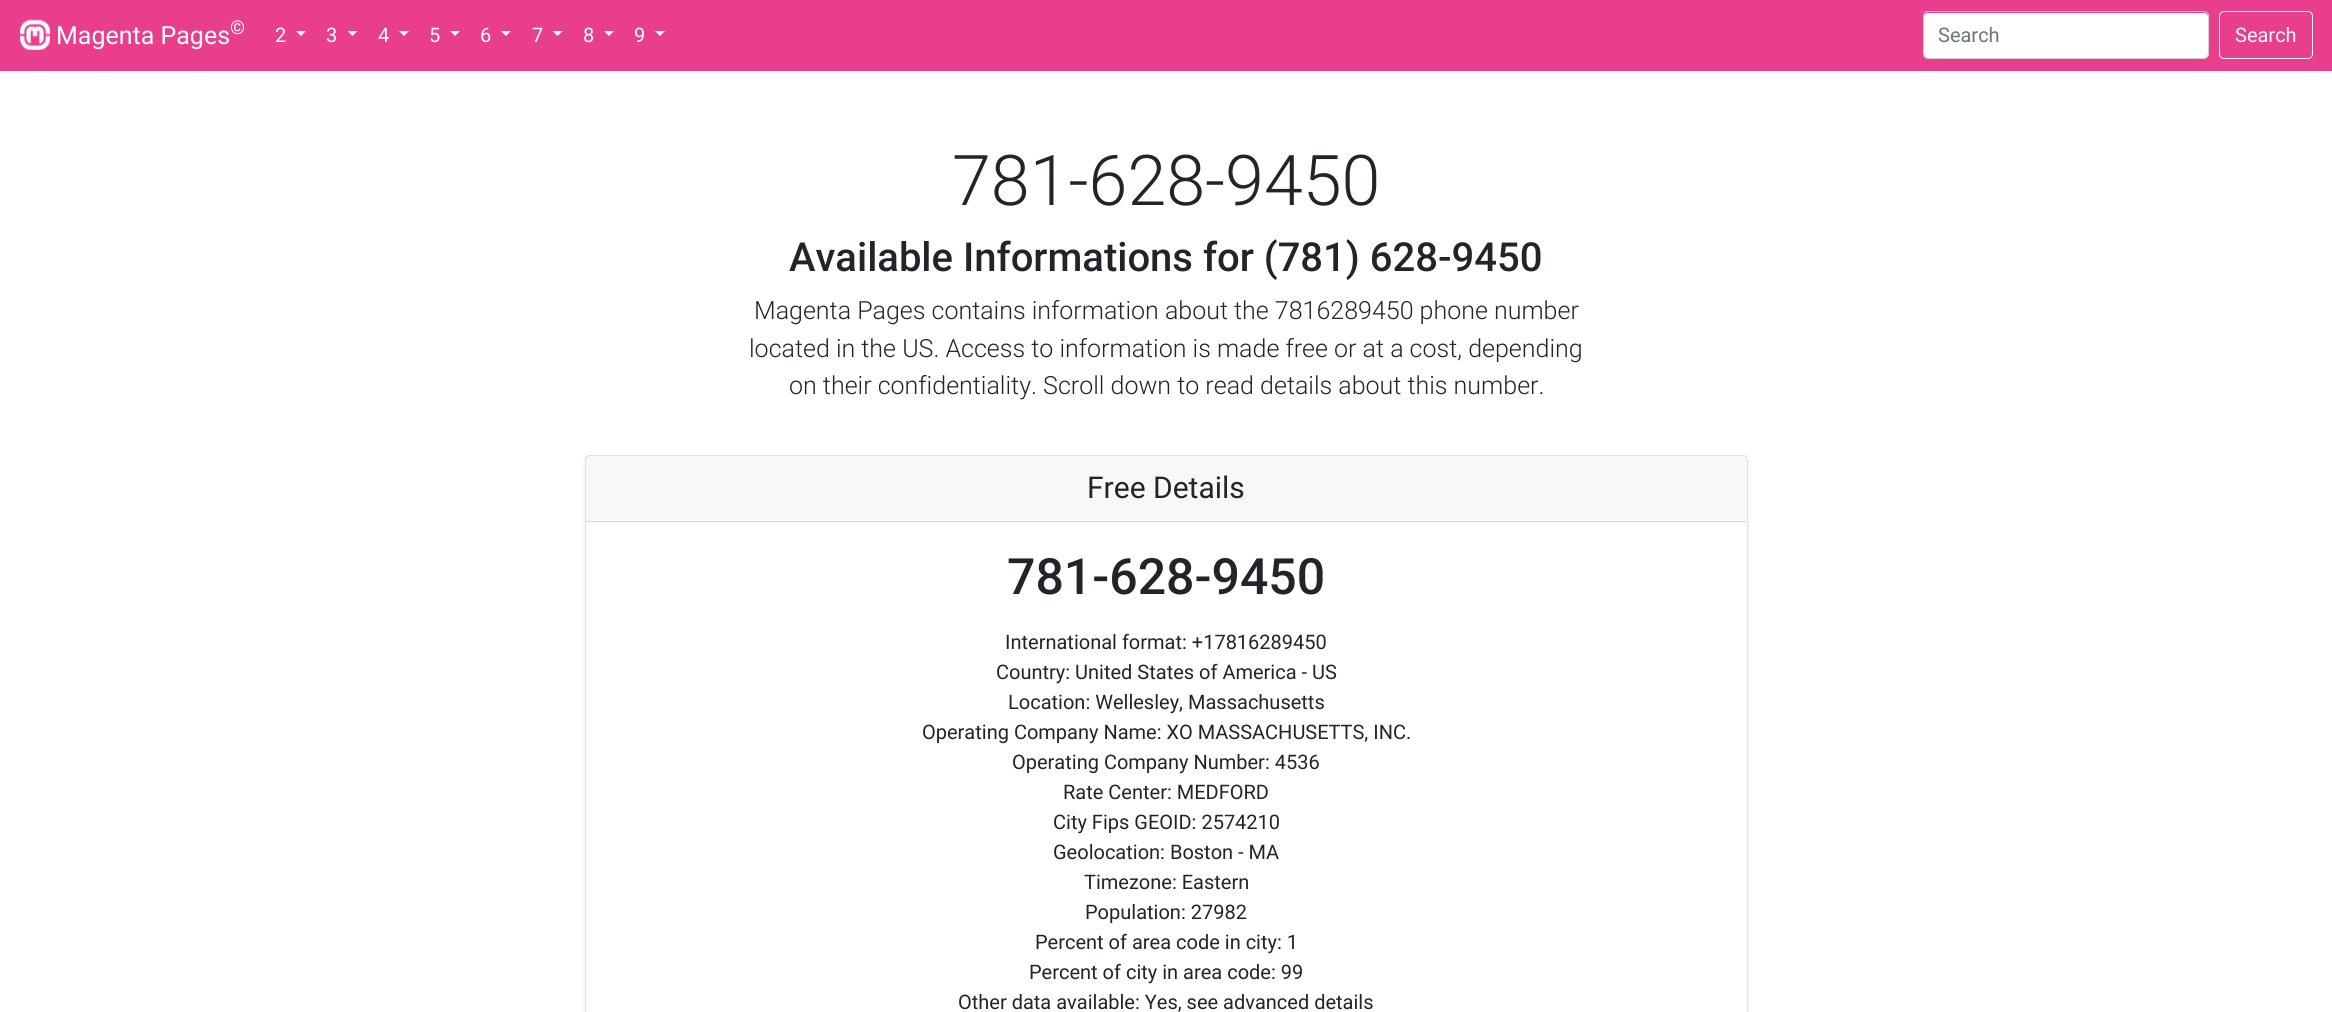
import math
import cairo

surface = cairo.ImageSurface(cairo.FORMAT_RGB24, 2332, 1012)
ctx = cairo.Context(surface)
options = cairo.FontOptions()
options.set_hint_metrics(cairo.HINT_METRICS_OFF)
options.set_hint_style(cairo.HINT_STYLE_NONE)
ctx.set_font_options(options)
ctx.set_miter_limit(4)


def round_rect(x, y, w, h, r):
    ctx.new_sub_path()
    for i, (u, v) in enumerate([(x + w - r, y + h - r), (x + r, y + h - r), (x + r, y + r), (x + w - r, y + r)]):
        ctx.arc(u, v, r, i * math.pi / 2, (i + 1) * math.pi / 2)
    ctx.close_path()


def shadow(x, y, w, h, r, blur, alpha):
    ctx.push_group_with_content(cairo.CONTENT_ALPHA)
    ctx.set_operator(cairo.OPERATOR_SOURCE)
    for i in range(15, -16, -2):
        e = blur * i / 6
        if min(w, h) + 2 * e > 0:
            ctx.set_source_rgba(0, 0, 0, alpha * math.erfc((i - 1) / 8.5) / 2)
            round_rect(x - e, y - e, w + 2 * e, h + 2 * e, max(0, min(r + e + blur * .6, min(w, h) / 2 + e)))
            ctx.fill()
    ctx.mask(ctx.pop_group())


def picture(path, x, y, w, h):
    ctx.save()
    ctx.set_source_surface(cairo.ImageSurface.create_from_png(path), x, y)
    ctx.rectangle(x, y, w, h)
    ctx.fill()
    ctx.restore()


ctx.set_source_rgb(1, 1, 1)
ctx.paint()
ctx.set_source_rgb(0.91, 0.243, 0.549)
ctx.rectangle(0, 0, 2332, 71)
ctx.fill()
picture("img1.png", 20, 19, 30, 31)
ctx.select_font_face("Roboto")
ctx.set_font_size(25)
ctx.set_source_rgb(1, 1, 1)
ctx.move_to(56, 44)
ctx.show_text("Magenta Pages")
ctx.set_font_size(19)
ctx.move_to(230, 34)
ctx.show_text("©")
ctx.set_font_size(20)
ctx.move_to(275, 42)
ctx.show_text("2")
ctx.new_path()
ctx.move_to(296, 31)
ctx.line_to(306, 31)
ctx.line_to(301, 36)
ctx.close_path()
ctx.fill()
ctx.move_to(326, 42)
ctx.show_text("3")
ctx.new_path()
ctx.move_to(347.5, 31)
ctx.line_to(357.5, 31)
ctx.line_to(352.5, 36)
ctx.close_path()
ctx.fill()
ctx.move_to(378, 42)
ctx.show_text("4")
ctx.new_path()
ctx.move_to(399, 31)
ctx.line_to(409, 31)
ctx.line_to(404, 36)
ctx.close_path()
ctx.fill()
ctx.move_to(429, 42)
ctx.show_text("5")
ctx.new_path()
ctx.move_to(450, 31)
ctx.line_to(460, 31)
ctx.line_to(455, 36)
ctx.close_path()
ctx.fill()
ctx.move_to(480, 42)
ctx.show_text("6")
ctx.new_path()
ctx.move_to(501, 31)
ctx.line_to(511, 31)
ctx.line_to(506, 36)
ctx.close_path()
ctx.fill()
ctx.move_to(532, 42)
ctx.show_text("7")
ctx.new_path()
ctx.move_to(552.5, 31)
ctx.line_to(562.5, 31)
ctx.line_to(557.5, 36)
ctx.close_path()
ctx.fill()
ctx.move_to(583, 42)
ctx.show_text("8")
ctx.new_path()
ctx.move_to(604, 31)
ctx.line_to(614, 31)
ctx.line_to(609, 36)
ctx.close_path()
ctx.fill()
ctx.move_to(634, 42)
ctx.show_text("9")
ctx.new_path()
ctx.move_to(655, 31)
ctx.line_to(665, 31)
ctx.line_to(660, 36)
ctx.close_path()
ctx.fill()
round_rect(1924, 13, 284, 45, 4)
ctx.fill()
round_rect(1923.5, 11.5, 285, 47, 4.5)
ctx.set_source_rgb(0.808, 0.831, 0.855)
ctx.set_line_width(1)
ctx.stroke()
ctx.set_source_rgb(0.424, 0.459, 0.49)
ctx.move_to(1938, 42)
ctx.show_text("Search")
round_rect(2219.5, 11.5, 93, 47, 4.5)
ctx.set_source_rgb(0.973, 0.976, 0.98)
ctx.stroke()
ctx.move_to(2235, 42)
ctx.show_text("Search")
ctx.select_font_face("Roboto Light")
ctx.set_font_size(70)
ctx.set_source_rgb(0.129, 0.145, 0.161)
ctx.move_to(952, 205)
ctx.show_text("781-628-9450")
ctx.select_font_face("Roboto Medium")
ctx.set_font_size(40)
ctx.move_to(789, 271)
ctx.show_text("Available Informations for (781) 628-9450")
ctx.select_font_face("Roboto Light")
ctx.set_font_size(25)
ctx.move_to(754, 319)
ctx.show_text("Magenta Pages contains information about the 7816289450 phone number")
ctx.move_to(749, 357)
ctx.show_text("located in the US. Access to information is made free or at a cost, depending")
ctx.move_to(789, 394)
ctx.show_text("on their confidentiality. Scroll down to read details about this number.")
ctx.set_source_rgb(0, 0, 0)
shadow(585, 458, 1163, 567, 5, 2.5, 0.07)
ctx.set_source_rgb(1, 1, 1)
round_rect(585.5, 455.5, 1162, 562, 4.5)
ctx.fill_preserve()
ctx.set_source_rgb(0.875, 0.875, 0.875)
ctx.stroke()
ctx.set_source_rgba(0, 0, 0, 0.03)
ctx.rectangle(586, 456, 1160, 67)
ctx.fill()
ctx.set_source_rgb(0.847, 0.847, 0.847)
ctx.rectangle(586, 521, 1160, 1)
ctx.fill()
ctx.select_font_face("Roboto")
ctx.set_font_size(30)
ctx.set_source_rgb(0.129, 0.145, 0.161)
ctx.move_to(1087, 498)
ctx.show_text("Free Details")
ctx.select_font_face("Roboto Medium")
ctx.set_font_size(50)
ctx.move_to(1007, 594)
ctx.show_text("781-628-9450")
ctx.select_font_face("Roboto")
ctx.set_font_size(20)
ctx.move_to(1005, 649)
ctx.show_text("International format: +17816289450")
ctx.move_to(996, 679)
ctx.show_text("Country: United States of America - US")
ctx.move_to(1008, 709)
ctx.show_text("Location: Wellesley, Massachusetts")
ctx.move_to(922, 739)
ctx.show_text("Operating Company Name: XO MASSACHUSETTS, INC.")
ctx.move_to(1012, 769)
ctx.show_text("Operating Company Number: 4536")
ctx.move_to(1063, 799)
ctx.show_text("Rate Center: MEDFORD")
ctx.move_to(1053, 829)
ctx.show_text("City Fips GEOID: 2574210")
ctx.move_to(1053, 859)
ctx.show_text("Geolocation: Boston - MA")
ctx.move_to(1084, 889)
ctx.show_text("Timezone: Eastern")
ctx.move_to(1085, 919)
ctx.show_text("Population: 27982")
ctx.move_to(1035, 949)
ctx.show_text("Percent of area code in city: 1")
ctx.move_to(1029, 979)
ctx.show_text("Percent of city in area code: 99")
ctx.move_to(958, 1009)
ctx.show_text("Other data available: Yes, see advanced details")
surface.write_to_png("page.png")
